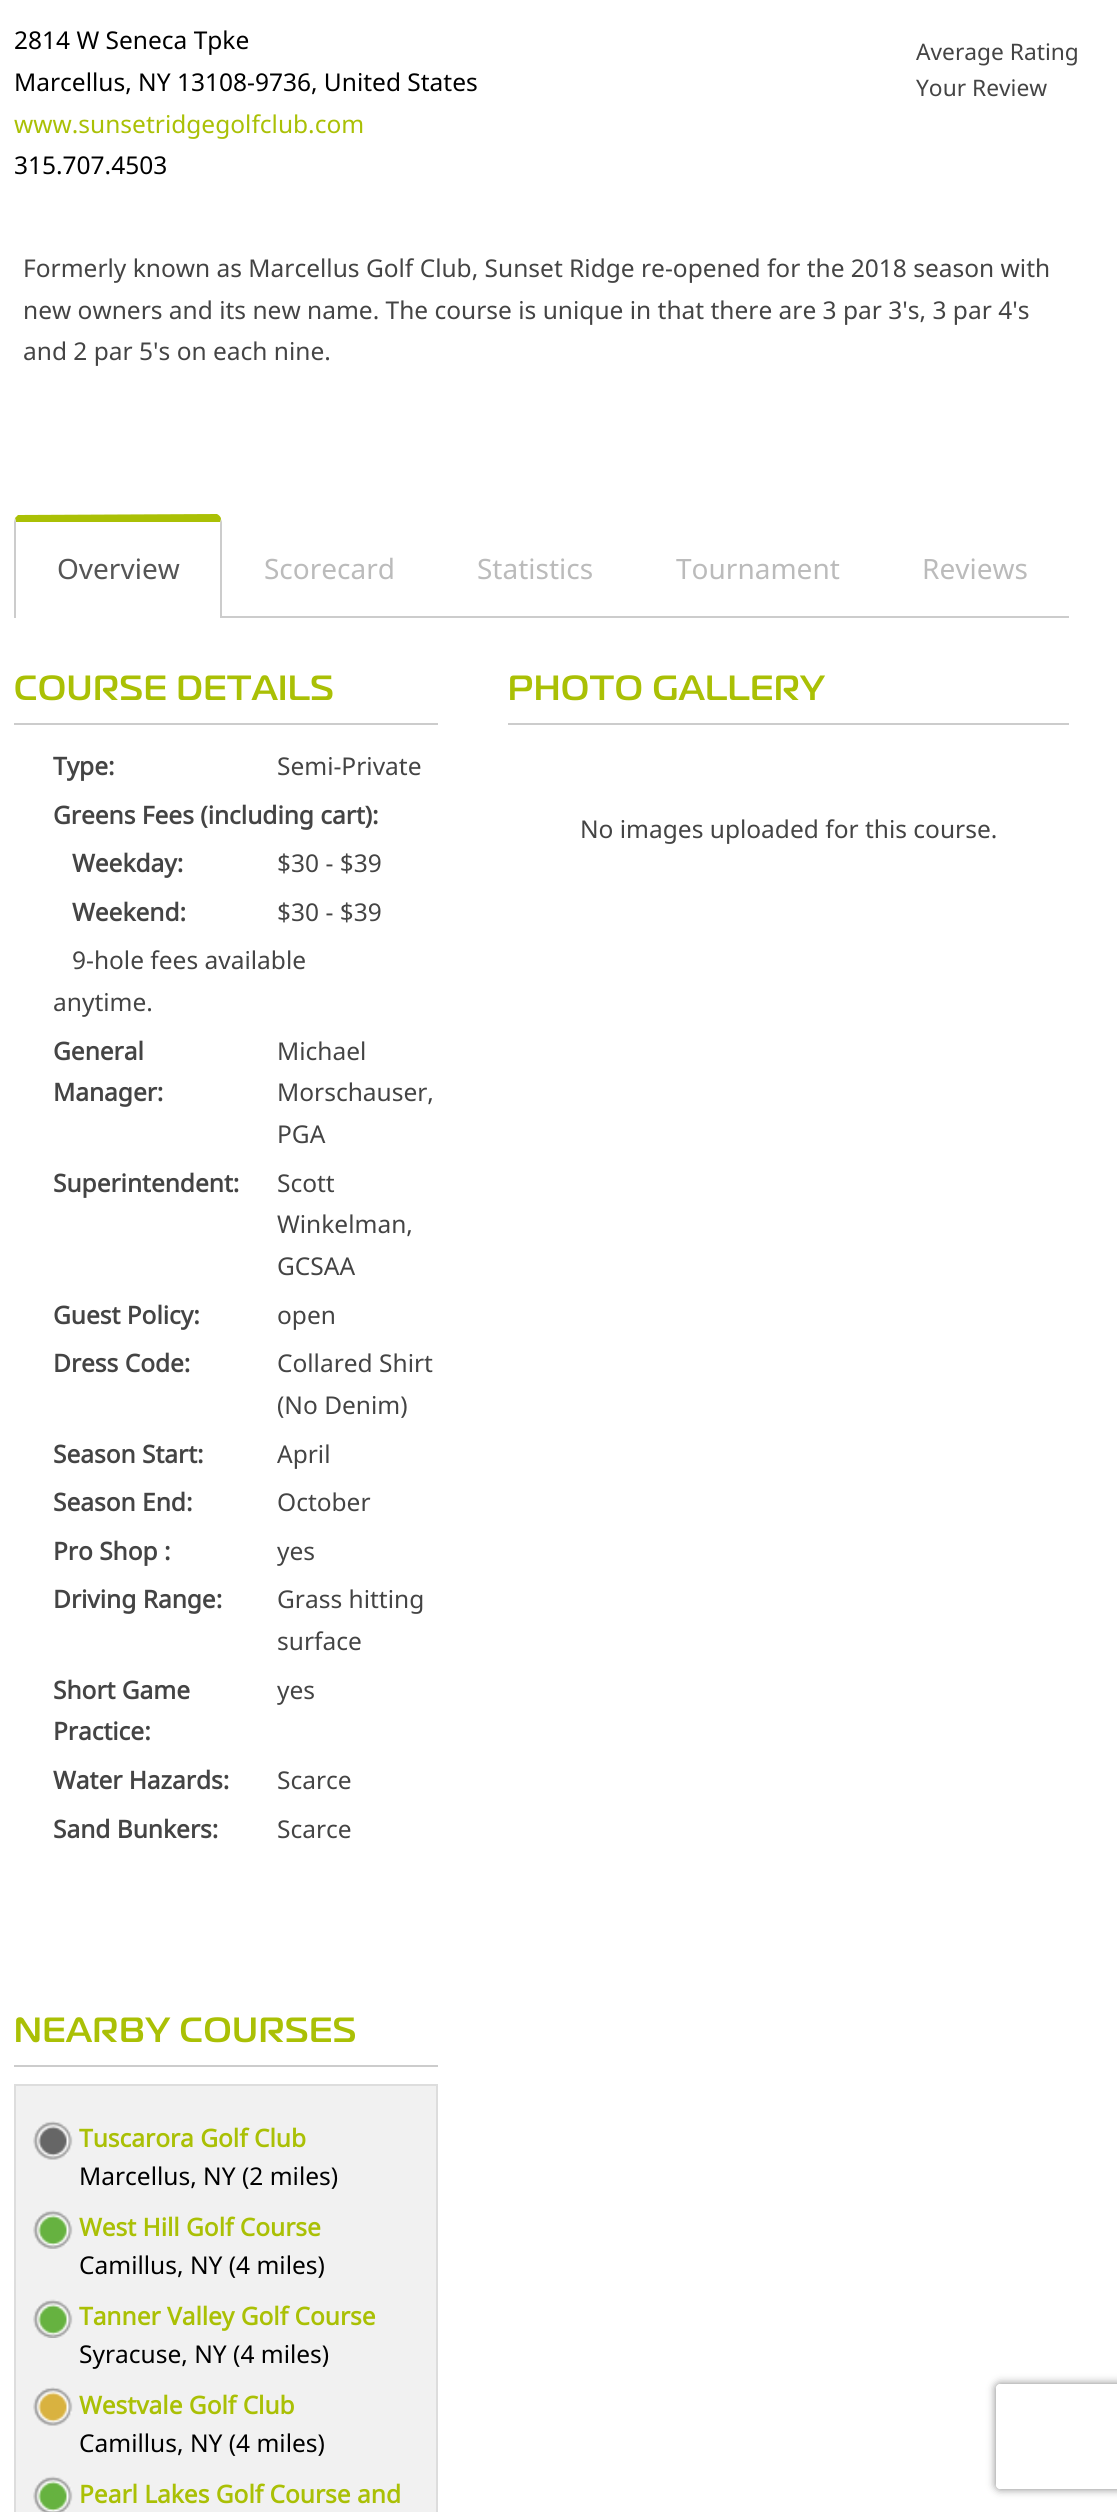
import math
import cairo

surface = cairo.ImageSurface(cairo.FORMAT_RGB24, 1117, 2512)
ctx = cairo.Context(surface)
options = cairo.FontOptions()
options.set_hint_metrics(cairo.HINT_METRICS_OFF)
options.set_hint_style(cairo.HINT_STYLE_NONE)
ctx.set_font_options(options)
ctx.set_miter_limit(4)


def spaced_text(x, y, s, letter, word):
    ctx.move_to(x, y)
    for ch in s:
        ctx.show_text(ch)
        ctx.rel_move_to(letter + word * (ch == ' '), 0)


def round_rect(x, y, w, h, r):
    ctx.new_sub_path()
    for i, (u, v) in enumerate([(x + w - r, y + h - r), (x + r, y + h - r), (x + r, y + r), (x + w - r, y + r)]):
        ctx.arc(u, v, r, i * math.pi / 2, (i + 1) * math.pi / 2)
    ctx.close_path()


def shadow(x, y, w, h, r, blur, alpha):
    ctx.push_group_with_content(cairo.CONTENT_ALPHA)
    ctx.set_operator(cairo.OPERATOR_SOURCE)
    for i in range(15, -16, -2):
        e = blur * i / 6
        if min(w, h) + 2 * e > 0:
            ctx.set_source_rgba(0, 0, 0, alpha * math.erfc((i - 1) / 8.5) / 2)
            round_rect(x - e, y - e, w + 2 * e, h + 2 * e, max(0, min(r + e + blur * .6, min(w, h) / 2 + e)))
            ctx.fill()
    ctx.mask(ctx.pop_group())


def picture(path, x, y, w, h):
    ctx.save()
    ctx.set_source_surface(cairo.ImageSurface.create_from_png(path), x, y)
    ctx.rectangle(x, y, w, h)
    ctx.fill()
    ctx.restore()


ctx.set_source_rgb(1, 1, 1)
ctx.paint()
ctx.select_font_face("Noto Sans")
ctx.set_font_size(24.5)
ctx.set_source_rgb(0, 0, 0)
ctx.move_to(14, 49)
ctx.show_text("2814 W Seneca Tpke")
ctx.move_to(14, 91)
ctx.show_text("Marcellus, NY 13108-9736, United States")
ctx.set_font_size(22.75)
ctx.set_source_rgb(0.267, 0.267, 0.267)
ctx.move_to(916, 60)
ctx.show_text("Average Rating")
ctx.move_to(916, 96)
ctx.show_text("Your Review")
ctx.set_font_size(24.5)
ctx.set_source_rgb(0.667, 0.753, 0.02)
ctx.move_to(14, 133)
ctx.show_text("www.sunsetridgegolfclub.com")
ctx.set_source_rgb(0, 0, 0)
ctx.move_to(14, 174)
ctx.show_text("315.707.4503")
ctx.set_source_rgb(0.267, 0.267, 0.267)
ctx.move_to(23, 277)
ctx.show_text("Formerly known as Marcellus Golf Club, Sunset Ridge re-opened for the 2018 season with")
ctx.move_to(23, 319)
ctx.show_text("new owners and its new name. The course is unique in that there are 3 par 3's, 3 par 4's")
ctx.move_to(23, 360)
ctx.show_text("and 2 par 5's on each nine.")
ctx.set_source_rgb(0.667, 0.753, 0.02)
ctx.new_path()
ctx.move_to(15, 518)
ctx.line_to(18, 515)
ctx.line_to(217, 514)
ctx.curve_to(219, 515, 221, 517, 221, 519)
ctx.line_to(220, 524)
ctx.line_to(220, 522)
ctx.line_to(16, 522)
ctx.close_path()
ctx.fill()
ctx.set_source_rgb(0.8, 0.8, 0.8)
ctx.new_path()
ctx.move_to(220, 618)
ctx.line_to(220, 524)
ctx.line_to(221, 519)
ctx.line_to(222, 522)
ctx.line_to(222, 618)
ctx.close_path()
ctx.fill()
ctx.new_path()
ctx.move_to(14, 618)
ctx.line_to(16, 618)
ctx.line_to(16, 522)
ctx.line_to(15, 518)
ctx.line_to(14, 522)
ctx.close_path()
ctx.fill()
ctx.set_font_size(28)
ctx.set_source_rgb(0.333, 0.333, 0.333)
ctx.move_to(57, 579)
ctx.show_text("Overview")
ctx.set_source_rgb(0.8, 0.8, 0.8)
ctx.rectangle(222, 616, 847, 2)
ctx.fill()
ctx.set_source_rgb(0.733, 0.733, 0.733)
ctx.move_to(264, 579)
ctx.show_text("Scorecard")
ctx.move_to(477, 579)
ctx.show_text("Statistics")
ctx.move_to(676, 579)
ctx.show_text("Tournament")
ctx.move_to(922, 579)
ctx.show_text("Reviews")
ctx.select_font_face("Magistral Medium")
ctx.set_font_size(35)
ctx.set_source_rgb(0.667, 0.753, 0.02)
spaced_text(14, 700, "COURSE DETAILS", 0.9, 0)
ctx.set_source_rgb(0.8, 0.8, 0.8)
ctx.rectangle(14, 723, 424, 2)
ctx.fill()
ctx.select_font_face("Noto Sans", cairo.FONT_SLANT_NORMAL, cairo.FONT_WEIGHT_BOLD)
ctx.set_font_size(24.5)
ctx.set_source_rgb(0.267, 0.267, 0.267)
ctx.move_to(53, 775)
ctx.show_text("Type:")
ctx.select_font_face("Noto Sans")
ctx.move_to(277, 775)
ctx.show_text("Semi-Private")
ctx.select_font_face("Noto Sans", cairo.FONT_SLANT_NORMAL, cairo.FONT_WEIGHT_BOLD)
ctx.move_to(53, 824)
ctx.show_text("Greens Fees (including cart):")
ctx.move_to(72, 872)
ctx.show_text("Weekday:")
ctx.select_font_face("Noto Sans")
ctx.move_to(277, 872)
ctx.show_text("$30 - $39")
ctx.select_font_face("Noto Sans", cairo.FONT_SLANT_NORMAL, cairo.FONT_WEIGHT_BOLD)
ctx.move_to(72, 921)
ctx.show_text("Weekend:")
ctx.select_font_face("Noto Sans")
ctx.move_to(277, 921)
ctx.show_text("$30 - $39")
ctx.move_to(72, 969)
ctx.show_text("9-hole fees available")
ctx.move_to(53, 1011)
ctx.show_text("anytime.")
ctx.select_font_face("Noto Sans", cairo.FONT_SLANT_NORMAL, cairo.FONT_WEIGHT_BOLD)
ctx.move_to(53, 1060)
ctx.show_text("General")
ctx.move_to(53, 1101)
ctx.show_text("Manager:")
ctx.select_font_face("Noto Sans")
ctx.move_to(277, 1060)
ctx.show_text("Michael")
ctx.move_to(277, 1101)
ctx.show_text("Morschauser,")
ctx.move_to(277, 1143)
ctx.show_text("PGA")
ctx.select_font_face("Noto Sans", cairo.FONT_SLANT_NORMAL, cairo.FONT_WEIGHT_BOLD)
ctx.move_to(53, 1192)
ctx.show_text("Superintendent:")
ctx.select_font_face("Noto Sans")
ctx.move_to(277, 1192)
ctx.show_text("Scott")
ctx.move_to(277, 1233)
ctx.show_text("Winkelman,")
ctx.move_to(277, 1275)
ctx.show_text("GCSAA")
ctx.select_font_face("Noto Sans", cairo.FONT_SLANT_NORMAL, cairo.FONT_WEIGHT_BOLD)
ctx.move_to(53, 1324)
ctx.show_text("Guest Policy:")
ctx.select_font_face("Noto Sans")
ctx.move_to(277, 1324)
ctx.show_text("open")
ctx.select_font_face("Noto Sans", cairo.FONT_SLANT_NORMAL, cairo.FONT_WEIGHT_BOLD)
ctx.move_to(53, 1372)
ctx.show_text("Dress Code:")
ctx.select_font_face("Noto Sans")
ctx.move_to(277, 1372)
ctx.show_text("Collared Shirt")
ctx.move_to(277, 1414)
ctx.show_text("(No Denim)")
ctx.select_font_face("Noto Sans", cairo.FONT_SLANT_NORMAL, cairo.FONT_WEIGHT_BOLD)
ctx.move_to(53, 1463)
ctx.show_text("Season Start:")
ctx.select_font_face("Noto Sans")
ctx.move_to(277, 1463)
ctx.show_text("April")
ctx.select_font_face("Noto Sans", cairo.FONT_SLANT_NORMAL, cairo.FONT_WEIGHT_BOLD)
ctx.move_to(53, 1511)
ctx.show_text("Season End:")
ctx.select_font_face("Noto Sans")
ctx.move_to(277, 1511)
ctx.show_text("October")
ctx.select_font_face("Noto Sans", cairo.FONT_SLANT_NORMAL, cairo.FONT_WEIGHT_BOLD)
ctx.move_to(53, 1560)
ctx.show_text("Pro Shop :")
ctx.select_font_face("Noto Sans")
ctx.move_to(277, 1560)
ctx.show_text("yes")
ctx.select_font_face("Noto Sans", cairo.FONT_SLANT_NORMAL, cairo.FONT_WEIGHT_BOLD)
ctx.move_to(53, 1608)
ctx.show_text("Driving Range:")
ctx.select_font_face("Noto Sans")
ctx.move_to(277, 1608)
ctx.show_text("Grass hitting")
ctx.move_to(277, 1650)
ctx.show_text("surface")
ctx.select_font_face("Noto Sans", cairo.FONT_SLANT_NORMAL, cairo.FONT_WEIGHT_BOLD)
ctx.move_to(53, 1699)
ctx.show_text("Short Game")
ctx.move_to(53, 1740)
ctx.show_text("Practice:")
ctx.select_font_face("Noto Sans")
ctx.move_to(277, 1699)
ctx.show_text("yes")
ctx.select_font_face("Noto Sans", cairo.FONT_SLANT_NORMAL, cairo.FONT_WEIGHT_BOLD)
ctx.move_to(53, 1789)
ctx.show_text("Water Hazards:")
ctx.select_font_face("Noto Sans")
ctx.move_to(277, 1789)
ctx.show_text("Scarce")
ctx.select_font_face("Noto Sans", cairo.FONT_SLANT_NORMAL, cairo.FONT_WEIGHT_BOLD)
ctx.move_to(53, 1838)
ctx.show_text("Sand Bunkers:")
ctx.select_font_face("Noto Sans")
ctx.move_to(277, 1838)
ctx.show_text("Scarce")
ctx.select_font_face("Magistral Medium")
ctx.set_font_size(35)
ctx.set_source_rgb(0.667, 0.753, 0.02)
spaced_text(14, 2042, "NEARBY COURSES", 0.9, 0)
ctx.set_source_rgb(0.8, 0.8, 0.8)
ctx.rectangle(14, 2065, 424, 2)
ctx.fill()
ctx.set_source_rgb(0.945, 0.945, 0.945)
ctx.rectangle(15, 2085, 422, 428)
ctx.fill_preserve()
ctx.set_source_rgb(0.867, 0.867, 0.867)
ctx.stroke()
picture("img1.png", 33, 2121, 40, 39)
ctx.select_font_face("Noto Sans", cairo.FONT_SLANT_NORMAL, cairo.FONT_WEIGHT_BOLD)
ctx.set_font_size(24.5)
ctx.set_source_rgb(0.667, 0.753, 0.02)
ctx.move_to(79, 2147)
ctx.show_text("Tuscarora Golf Club")
ctx.select_font_face("Noto Sans")
ctx.set_source_rgb(0, 0, 0)
ctx.move_to(79, 2185)
ctx.show_text("Marcellus, NY (2 miles)")
picture("img2.png", 33, 2210, 40, 39)
ctx.select_font_face("Noto Sans", cairo.FONT_SLANT_NORMAL, cairo.FONT_WEIGHT_BOLD)
ctx.set_source_rgb(0.667, 0.753, 0.02)
ctx.move_to(79, 2236)
ctx.show_text("West Hill Golf Course")
ctx.select_font_face("Noto Sans")
ctx.set_source_rgb(0, 0, 0)
ctx.move_to(79, 2274)
ctx.show_text("Camillus, NY (4 miles)")
picture("img3.png", 33, 2299, 40, 39)
ctx.select_font_face("Noto Sans", cairo.FONT_SLANT_NORMAL, cairo.FONT_WEIGHT_BOLD)
ctx.set_source_rgb(0.667, 0.753, 0.02)
ctx.move_to(79, 2325)
ctx.show_text("Tanner Valley Golf Course")
ctx.select_font_face("Noto Sans")
ctx.set_source_rgb(0, 0, 0)
ctx.move_to(79, 2363)
ctx.show_text("Syracuse, NY (4 miles)")
picture("img4.png", 33, 2387, 40, 39)
ctx.select_font_face("Noto Sans", cairo.FONT_SLANT_NORMAL, cairo.FONT_WEIGHT_BOLD)
ctx.set_source_rgb(0.667, 0.753, 0.02)
ctx.move_to(79, 2414)
ctx.show_text("Westvale Golf Club")
ctx.select_font_face("Noto Sans")
ctx.set_source_rgb(0, 0, 0)
ctx.move_to(79, 2452)
ctx.show_text("Camillus, NY (4 miles)")
picture("img5.png", 33, 2476, 40, 36)
ctx.select_font_face("Noto Sans", cairo.FONT_SLANT_NORMAL, cairo.FONT_WEIGHT_BOLD)
ctx.set_source_rgb(0.667, 0.753, 0.02)
ctx.move_to(79, 2503)
ctx.show_text("Pearl Lakes Golf Course and")
ctx.select_font_face("Magistral Medium")
ctx.set_font_size(35)
spaced_text(508, 700, "PHOTO GALLERY", 0.9, 0)
ctx.set_source_rgb(0.8, 0.8, 0.8)
ctx.rectangle(508, 723, 561, 2)
ctx.fill()
ctx.select_font_face("Noto Sans")
ctx.set_font_size(24.5)
ctx.set_source_rgb(0.267, 0.267, 0.267)
ctx.move_to(580, 838)
ctx.show_text("No images uploaded for this course.")
ctx.save()
ctx.set_fill_rule(cairo.FILL_RULE_EVEN_ODD)
ctx.new_path()
ctx.move_to(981, 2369)
ctx.line_to(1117, 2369)
ctx.line_to(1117, 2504)
ctx.line_to(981, 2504)
ctx.close_path()
ctx.move_to(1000, 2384)
ctx.line_to(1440, 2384)
ctx.curve_to(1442, 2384, 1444, 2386, 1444, 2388)
ctx.line_to(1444, 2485)
ctx.curve_to(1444, 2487, 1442, 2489, 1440, 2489)
ctx.line_to(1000, 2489)
ctx.curve_to(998, 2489, 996, 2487, 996, 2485)
ctx.line_to(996, 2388)
ctx.curve_to(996, 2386, 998, 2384, 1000, 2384)
ctx.close_path()
ctx.clip()
ctx.set_source_rgb(0.502, 0.502, 0.502)
shadow(996, 2384, 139, 105, 4, 4.5, 1)
ctx.restore()
surface.write_to_png("page.png")
